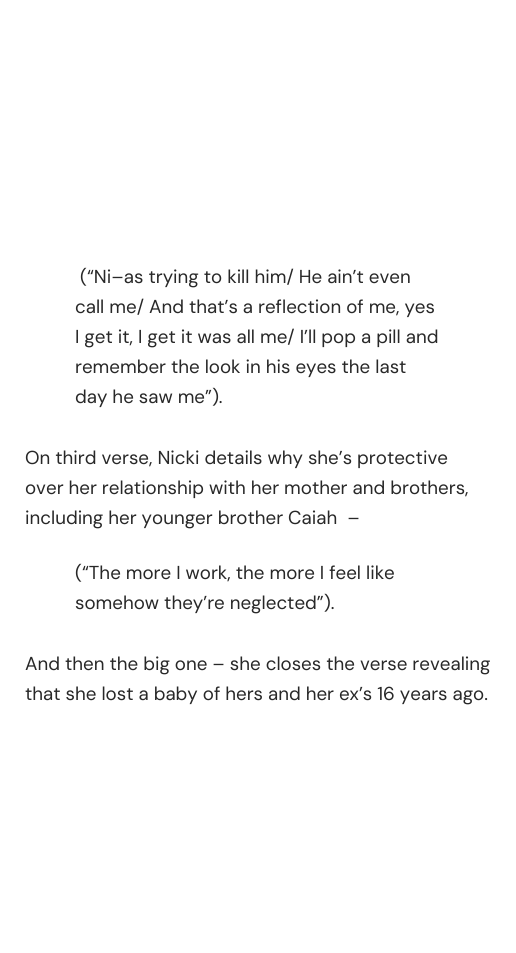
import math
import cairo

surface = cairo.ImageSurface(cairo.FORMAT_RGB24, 516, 953)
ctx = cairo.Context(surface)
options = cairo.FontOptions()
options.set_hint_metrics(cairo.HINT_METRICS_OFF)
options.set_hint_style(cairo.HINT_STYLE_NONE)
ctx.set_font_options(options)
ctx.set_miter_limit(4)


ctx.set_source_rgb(1, 1, 1)
ctx.paint()
ctx.select_font_face("DM Sans")
ctx.set_font_size(18.75)
ctx.set_source_rgb(0.157, 0.157, 0.157)
ctx.move_to(80, 283)
ctx.show_text("(“Ni–as trying to kill him/ He ain’t even")
ctx.move_to(75, 313)
ctx.show_text("call me/ And that’s a reflection of me, yes")
ctx.move_to(75, 343)
ctx.show_text("I get it, I get it was all me/ I’ll pop a pill and")
ctx.move_to(75, 373)
ctx.show_text("remember the look in his eyes the last")
ctx.move_to(75, 403)
ctx.show_text("day he saw me”).")
ctx.move_to(25, 464)
ctx.show_text("On third verse, Nicki details why she’s protective")
ctx.move_to(25, 494)
ctx.show_text("over her relationship with her mother and brothers,")
ctx.move_to(25, 524)
ctx.show_text("including her younger brother Caiah  –")
ctx.move_to(75, 579)
ctx.show_text("(“The more I work, the more I feel like")
ctx.move_to(75, 609)
ctx.show_text("somehow they’re neglected”).")
ctx.move_to(25, 670)
ctx.show_text("And then the big one – she closes the verse revealing")
ctx.move_to(25, 700)
ctx.show_text("that she lost a baby of hers and her ex’s 16 years ago.")
surface.write_to_png("page.png")
